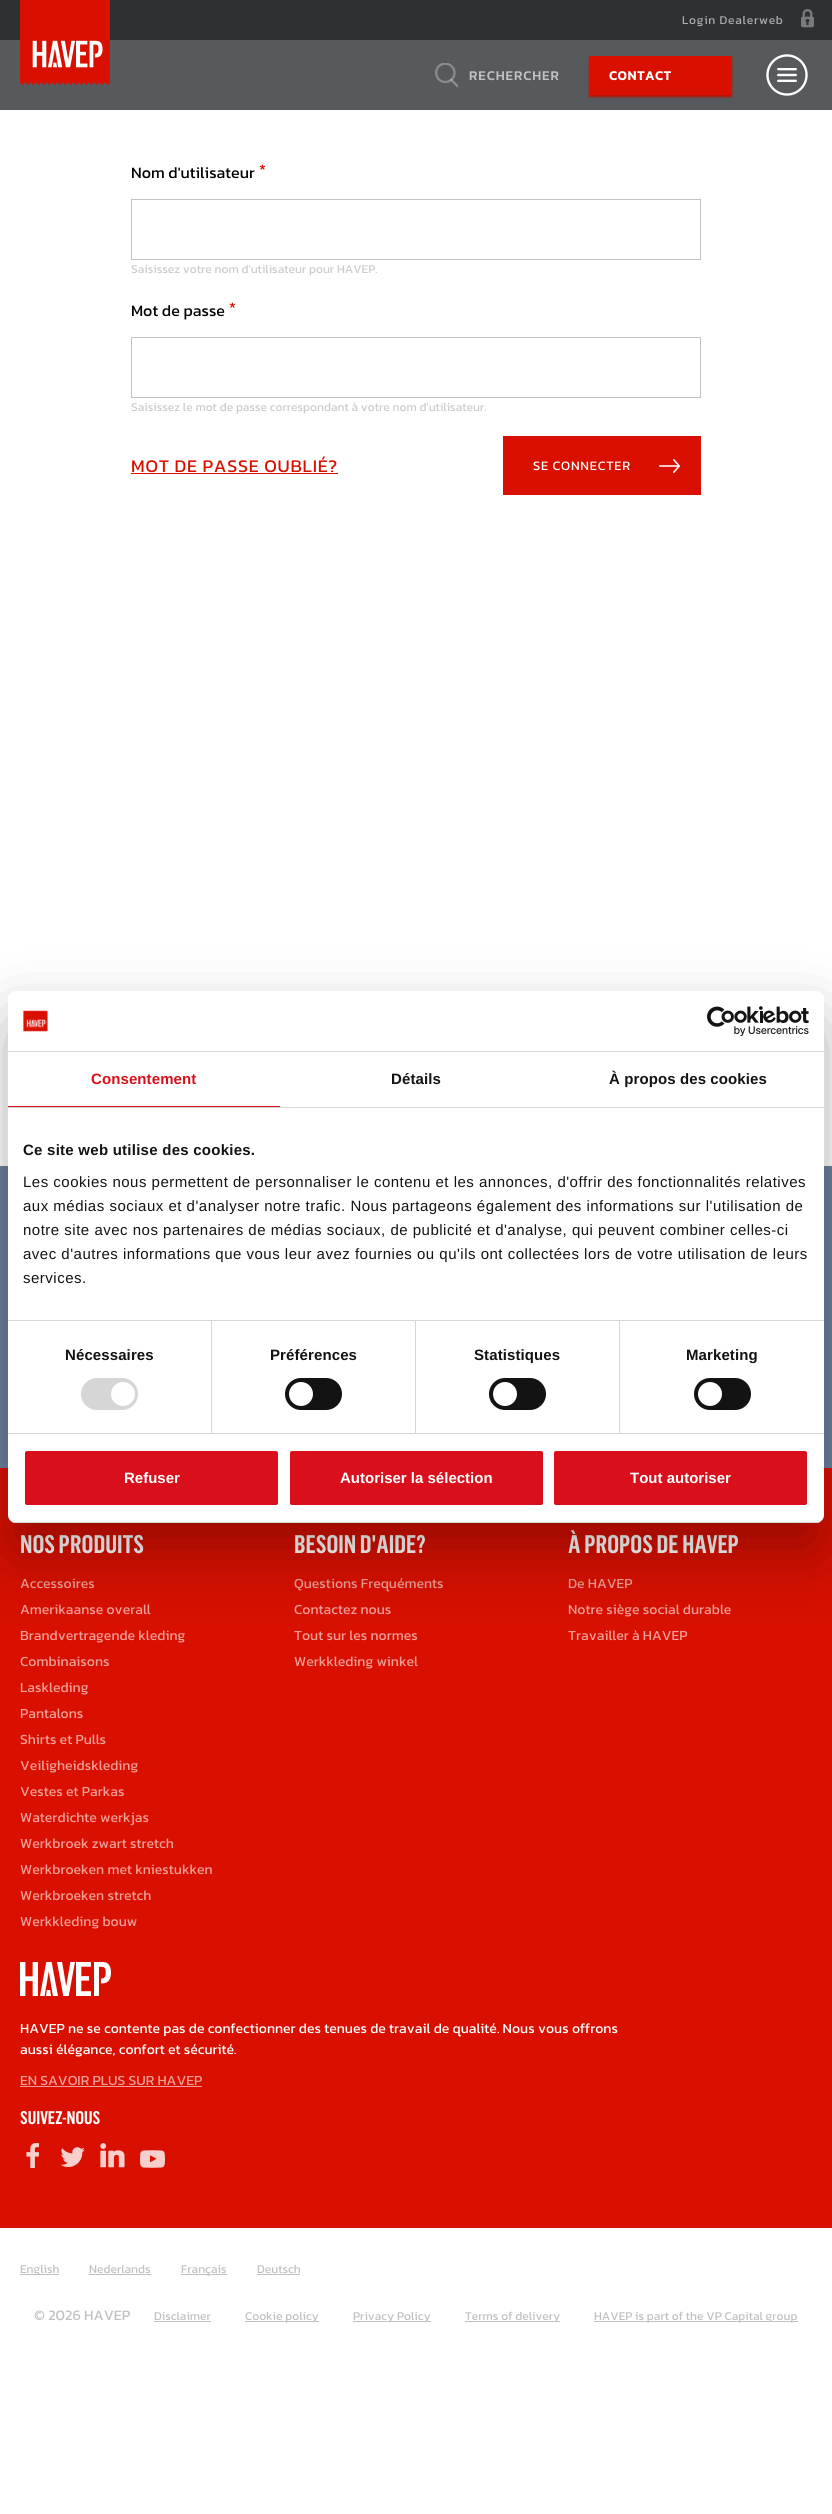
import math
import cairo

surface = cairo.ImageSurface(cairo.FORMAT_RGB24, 832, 2514)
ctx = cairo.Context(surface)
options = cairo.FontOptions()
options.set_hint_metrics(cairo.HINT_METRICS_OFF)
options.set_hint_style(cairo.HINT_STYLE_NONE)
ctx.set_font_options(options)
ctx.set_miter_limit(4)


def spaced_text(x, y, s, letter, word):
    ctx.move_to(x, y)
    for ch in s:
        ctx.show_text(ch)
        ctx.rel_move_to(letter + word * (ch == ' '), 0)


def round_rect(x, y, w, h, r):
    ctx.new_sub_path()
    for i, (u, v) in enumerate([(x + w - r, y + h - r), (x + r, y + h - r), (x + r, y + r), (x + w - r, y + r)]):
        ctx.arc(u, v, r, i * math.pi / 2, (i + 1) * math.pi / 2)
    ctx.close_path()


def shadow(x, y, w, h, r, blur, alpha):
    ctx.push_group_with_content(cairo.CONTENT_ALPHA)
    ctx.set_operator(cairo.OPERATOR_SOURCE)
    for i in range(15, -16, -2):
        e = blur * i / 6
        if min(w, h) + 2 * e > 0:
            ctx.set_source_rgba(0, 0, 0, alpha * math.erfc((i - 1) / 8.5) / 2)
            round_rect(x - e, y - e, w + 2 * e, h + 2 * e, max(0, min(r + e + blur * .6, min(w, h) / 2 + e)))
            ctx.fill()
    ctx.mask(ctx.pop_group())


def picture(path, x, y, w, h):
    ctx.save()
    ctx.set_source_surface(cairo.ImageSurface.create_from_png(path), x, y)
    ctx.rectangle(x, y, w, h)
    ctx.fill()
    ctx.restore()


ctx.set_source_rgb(1, 1, 1)
ctx.paint()
ctx.set_source_rgb(0.176, 0.192, 0.204)
ctx.rectangle(0, 0, 832, 40)
ctx.fill()
picture("img1.png", 801, 9, 13, 19)
ctx.select_font_face("Kanit")
ctx.set_font_size(12)
ctx.set_source_rgb(0.671, 0.678, 0.682)
spaced_text(682, 24, "Login Dealerweb", 0.75, 0)
ctx.set_source_rgb(0.341, 0.353, 0.365)
ctx.rectangle(0, 40, 832, 70)
ctx.fill()
picture("img2.png", 20, 0, 90, 85)
picture("img3.png", 435, 63, 23, 25)
ctx.select_font_face("Kanit Medium")
ctx.set_font_size(13.5)
ctx.set_source_rgb(0.753, 0.757, 0.761)
spaced_text(469, 80, "RECHERCHER", 0.9, 0)
ctx.set_source_rgb(0.741, 0.055, 0)
shadow(589, 58, 143, 39, 0, 1, 1)
ctx.set_source_rgb(0.851, 0.063, 0)
ctx.rectangle(589, 56, 143, 39)
ctx.fill()
ctx.select_font_face("Kanit", cairo.FONT_SLANT_NORMAL, cairo.FONT_WEIGHT_BOLD)
ctx.set_font_size(13)
ctx.set_source_rgb(1, 1, 1)
spaced_text(609, 80, "CONTACT", 0.75, 0)
picture("img4.png", 766, 54, 42, 42)
ctx.select_font_face("Kanit")
ctx.set_font_size(16)
ctx.set_source_rgb(0, 0, 0)
ctx.move_to(131, 178)
ctx.show_text("Nom d'utilisateur")
ctx.set_source_rgb(0.851, 0.063, 0)
ctx.move_to(259, 175)
ctx.show_text("*")
ctx.rectangle(131.5, 199.5, 569, 60)
ctx.set_source_rgb(0.757, 0.765, 0.769)
ctx.set_line_width(1)
ctx.stroke()
ctx.set_font_size(12)
ctx.set_source_rgb(0.8, 0.8, 0.8)
ctx.move_to(131, 273)
ctx.show_text("Saisissez votre nom d'utilisateur pour HAVEP.")
ctx.set_font_size(16)
ctx.set_source_rgb(0, 0, 0)
ctx.move_to(131, 316)
ctx.show_text("Mot de passe")
ctx.set_source_rgb(0.851, 0.063, 0)
ctx.move_to(229, 313)
ctx.show_text("*")
ctx.rectangle(131.5, 337.5, 569, 60)
ctx.set_source_rgb(0.757, 0.765, 0.769)
ctx.stroke()
ctx.set_font_size(12)
ctx.set_source_rgb(0.8, 0.8, 0.8)
ctx.move_to(131, 411)
ctx.show_text("Saisissez le mot de passe correspondant à votre nom d'utilisateur.")
ctx.set_font_size(18)
ctx.set_source_rgb(0.851, 0.063, 0)
spaced_text(131, 472, "MOT DE PASSE OUBLIÉ?", 0.75, 0)
ctx.rectangle(131, 473, 207, 1)
ctx.fill()
ctx.rectangle(503, 436, 198, 59)
ctx.fill()
picture("img5.png", 659, 459, 21, 14)
ctx.set_font_size(13)
ctx.set_source_rgb(1, 1, 1)
spaced_text(533, 470, "SE CONNECTER", 0.75, 0)
ctx.set_source_rgb(0.424, 0.502, 0.612)
ctx.rectangle(0, 1166, 832, 302)
ctx.fill()
ctx.set_source_rgb(0.851, 0.063, 0)
ctx.rectangle(0, 1468, 832, 760)
ctx.fill()
ctx.select_font_face("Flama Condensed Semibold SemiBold")
ctx.set_font_size(25)
ctx.set_source_rgb(1, 1, 1)
ctx.move_to(20, 1553)
ctx.show_text("NOS PRODUITS")
ctx.select_font_face("Kanit")
ctx.set_font_size(14)
ctx.set_source_rgb(0.941, 0.624, 0.6)
ctx.move_to(20, 1588)
ctx.show_text("Accessoires")
ctx.move_to(20, 1614)
ctx.show_text("Amerikaanse overall")
ctx.move_to(20, 1640)
ctx.show_text("Brandvertragende kleding")
ctx.move_to(20, 1666)
ctx.show_text("Combinaisons")
ctx.move_to(20, 1692)
ctx.show_text("Laskleding")
ctx.move_to(20, 1718)
ctx.show_text("Pantalons")
ctx.move_to(20, 1744)
ctx.show_text("Shirts et Pulls")
ctx.move_to(20, 1770)
ctx.show_text("Veiligheidskleding")
ctx.move_to(20, 1796)
ctx.show_text("Vestes et Parkas")
ctx.move_to(20, 1822)
ctx.show_text("Waterdichte werkjas")
ctx.move_to(20, 1848)
ctx.show_text("Werkbroek zwart stretch")
ctx.move_to(20, 1874)
ctx.show_text("Werkbroeken met kniestukken")
ctx.move_to(20, 1900)
ctx.show_text("Werkbroeken stretch")
ctx.move_to(20, 1926)
ctx.show_text("Werkkleding bouw")
ctx.select_font_face("Flama Condensed Semibold SemiBold")
ctx.set_font_size(25)
ctx.set_source_rgb(1, 1, 1)
ctx.move_to(294, 1553)
ctx.show_text("BESOIN D'AIDE?")
ctx.select_font_face("Kanit")
ctx.set_font_size(14)
ctx.set_source_rgb(0.941, 0.624, 0.6)
ctx.move_to(294, 1588)
ctx.show_text("Questions Frequéments")
ctx.move_to(294, 1614)
ctx.show_text("Contactez nous")
ctx.move_to(294, 1640)
ctx.show_text("Tout sur les normes")
ctx.move_to(294, 1666)
ctx.show_text("Werkkleding winkel")
ctx.select_font_face("Flama Condensed Semibold SemiBold")
ctx.set_font_size(25)
ctx.set_source_rgb(1, 1, 1)
ctx.move_to(568, 1553)
ctx.show_text("À PROPOS DE HAVEP")
ctx.select_font_face("Kanit")
ctx.set_font_size(14)
ctx.set_source_rgb(0.941, 0.624, 0.6)
ctx.move_to(568, 1588)
ctx.show_text("De HAVEP")
ctx.move_to(568, 1614)
ctx.show_text("Notre siège social durable")
ctx.move_to(568, 1640)
ctx.show_text("Travailler à HAVEP")
picture("img6.png", 20, 1962, 91, 34)
ctx.set_source_rgb(1, 1, 1)
ctx.move_to(20, 2033)
ctx.show_text("HAVEP ne se contente pas de confectionner des tenues de travail de qualité. Nous vous offrons")
ctx.move_to(20, 2054)
ctx.show_text("aussi élégance, confort et sécurité.")
ctx.set_source_rgb(0.941, 0.624, 0.6)
ctx.move_to(20, 2085)
ctx.show_text("EN SAVOIR PLUS SUR HAVEP")
ctx.rectangle(20, 2086, 182, 1)
ctx.fill()
ctx.select_font_face("Flama Condensed Semibold SemiBold")
ctx.set_font_size(18)
ctx.set_source_rgb(1, 1, 1)
ctx.move_to(20, 2124)
ctx.show_text("SUIVEZ-NOUS")
picture("img7.png", 26, 2143, 13, 25)
picture("img8.png", 60, 2147, 25, 20)
picture("img9.png", 100, 2143, 25, 25)
picture("img10.png", 140, 2150, 25, 18)
ctx.set_source_rgb(0.753, 0.757, 0.761)
ctx.rectangle(20, 2274, 39, 1)
ctx.fill()
ctx.select_font_face("Kanit")
ctx.set_font_size(12)
ctx.move_to(20, 2273)
ctx.show_text("English")
ctx.move_to(89, 2273)
ctx.show_text("Nederlands")
ctx.rectangle(89, 2274, 62, 1)
ctx.fill()
ctx.rectangle(181, 2274, 46, 1)
ctx.fill()
ctx.move_to(181, 2273)
ctx.show_text("Français")
ctx.move_to(257, 2273)
ctx.show_text("Deutsch")
ctx.rectangle(257, 2274, 43, 1)
ctx.fill()
ctx.set_font_size(14.5)
ctx.move_to(34, 2320)
ctx.show_text("© 2026 HAVEP")
ctx.set_font_size(12)
ctx.move_to(154, 2320)
ctx.show_text("Disclaimer")
ctx.rectangle(154, 2321, 57, 1)
ctx.fill()
ctx.rectangle(245, 2321, 74, 1)
ctx.fill()
ctx.move_to(245, 2320)
ctx.show_text("Cookie policy")
ctx.rectangle(353, 2321, 78, 1)
ctx.fill()
ctx.move_to(353, 2320)
ctx.show_text("Privacy Policy")
ctx.rectangle(465, 2321, 95, 1)
ctx.fill()
ctx.move_to(465, 2320)
ctx.show_text("Terms of delivery")
ctx.rectangle(594, 2321, 204, 1)
ctx.fill()
ctx.move_to(594, 2320)
ctx.show_text("HAVEP is part of the VP Capital group")
ctx.set_source_rgb(0, 0, 0)
shadow(8, 1023, 816, 532, 8, 34, 0.3)
ctx.set_source_rgb(1, 1, 1)
round_rect(8, 991, 816, 532, 8)
ctx.fill()
ctx.set_source_rgb(0.839, 0.839, 0.839)
ctx.rectangle(8, 1051, 816, 1)
ctx.fill()
picture("img11.png", 23, 1010, 25, 23)
picture("img12.png", 707, 1006, 102, 30)
ctx.rectangle(8, 1107, 816, 1)
ctx.fill()
ctx.set_source_rgb(0.851, 0.063, 0.11)
ctx.rectangle(8, 1106, 272, 1)
ctx.fill()
ctx.select_font_face("Liberation Sans", cairo.FONT_SLANT_NORMAL, cairo.FONT_WEIGHT_BOLD)
ctx.set_font_size(15)
spaced_text(91, 1084, "Consentement", 0.1, 0)
ctx.set_source_rgb(0.078, 0.078, 0.078)
spaced_text(391, 1084, "Détails", 0.1, 0)
spaced_text(609, 1084, "À propos des cookies", 0.1, 0)
ctx.set_source_rgb(0.839, 0.839, 0.839)
ctx.rectangle(8, 1320, 816, 1)
ctx.fill()
ctx.set_source_rgb(0.078, 0.078, 0.078)
spaced_text(23, 1155, "Ce site web utilise des cookies.", 0.25, 0)
ctx.select_font_face("Liberation Sans")
spaced_text(23, 1187, "Les cookies nous permettent de personnaliser le contenu et les annonces, d'offrir des fonctionnalités relatives", 0.5, 0)
spaced_text(23, 1211, "aux médias sociaux et d'analyser notre trafic. Nous partageons également des informations sur l'utilisation de", 0.5, 0)
spaced_text(23, 1235, "notre site avec nos partenaires de médias sociaux, de publicité et d'analyse, qui peuvent combiner celles-ci", 0.5, 0)
spaced_text(23, 1259, "avec d'autres informations que vous leur avez fournies ou qu'ils ont collectées lors de votre utilisation de leurs", 0.5, 0)
spaced_text(23, 1283, "services.", 0.5, 0)
ctx.set_source_rgb(0.839, 0.839, 0.839)
ctx.rectangle(8, 1433, 816, 1)
ctx.fill()
ctx.rectangle(211, 1321, 1, 112)
ctx.fill()
ctx.select_font_face("Liberation Sans", cairo.FONT_SLANT_NORMAL, cairo.FONT_WEIGHT_BOLD)
ctx.set_source_rgb(0.078, 0.078, 0.078)
spaced_text(65, 1360, "Nécessaires", 0.1, 0)
ctx.set_source_rgb(0.839, 0.839, 0.839)
round_rect(81, 1378, 57, 32, 16)
ctx.fill()
ctx.set_source_rgb(1, 1, 1)
ctx.arc(123, 1394, 12, 0, 2 * math.pi)
ctx.fill()
ctx.set_source_rgb(0.839, 0.839, 0.839)
ctx.rectangle(415, 1321, 1, 112)
ctx.fill()
ctx.set_source_rgb(0.078, 0.078, 0.078)
spaced_text(270, 1360, "Préférences", 0.1, 0)
round_rect(285, 1378, 57, 32, 16)
ctx.fill()
ctx.set_source_rgb(1, 1, 1)
ctx.arc(301, 1394, 12, 0, 2 * math.pi)
ctx.fill()
ctx.set_source_rgb(0.839, 0.839, 0.839)
ctx.rectangle(619, 1321, 1, 112)
ctx.fill()
ctx.set_source_rgb(0.078, 0.078, 0.078)
spaced_text(474, 1360, "Statistiques", 0.1, 0)
round_rect(489, 1378, 57, 32, 16)
ctx.fill()
ctx.set_source_rgb(1, 1, 1)
ctx.arc(505, 1394, 12, 0, 2 * math.pi)
ctx.fill()
ctx.set_source_rgb(0.078, 0.078, 0.078)
spaced_text(686, 1360, "Marketing", 0.1, 0)
round_rect(694, 1378, 57, 32, 16)
ctx.fill()
ctx.set_source_rgb(1, 1, 1)
ctx.arc(710, 1394, 12, 0, 2 * math.pi)
ctx.fill()
ctx.save()
round_rect(8, 991, 816, 532, 8)
ctx.clip()
ctx.set_source_rgb(0.839, 0.839, 0.839)
ctx.rectangle(8, 1522, 816, 1)
ctx.fill()
ctx.restore()
ctx.set_source_rgb(0.851, 0.063, 0.11)
round_rect(24, 1450, 255, 56, 3)
ctx.fill_preserve()
ctx.set_source_rgb(1, 1, 1)
ctx.set_line_width(2)
ctx.stroke()
ctx.move_to(124, 1483)
ctx.show_text("Refuser")
ctx.set_source_rgb(0.851, 0.063, 0.11)
round_rect(289, 1450, 255, 56, 3)
ctx.fill_preserve()
ctx.set_source_rgb(1, 1, 1)
ctx.stroke()
ctx.move_to(340, 1483)
ctx.show_text("Autoriser la sélection")
ctx.set_source_rgb(0.851, 0.063, 0.11)
round_rect(553, 1450, 255, 56, 3)
ctx.fill_preserve()
ctx.set_source_rgb(1, 1, 1)
ctx.stroke()
ctx.move_to(630, 1483)
ctx.show_text("Tout autoriser")
surface.write_to_png("page.png")
